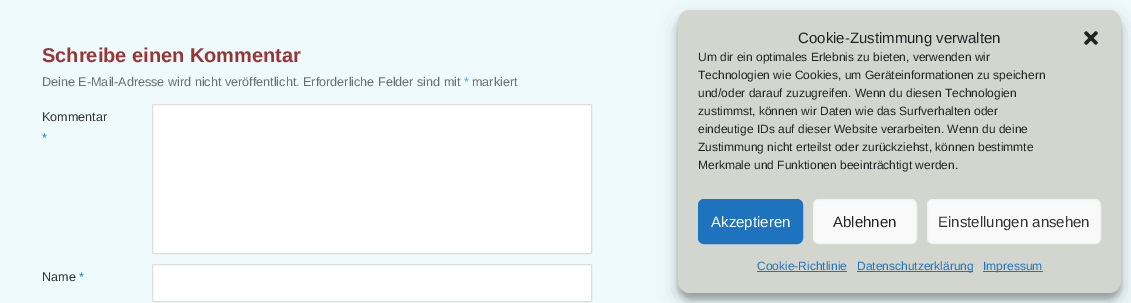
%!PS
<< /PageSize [1131 303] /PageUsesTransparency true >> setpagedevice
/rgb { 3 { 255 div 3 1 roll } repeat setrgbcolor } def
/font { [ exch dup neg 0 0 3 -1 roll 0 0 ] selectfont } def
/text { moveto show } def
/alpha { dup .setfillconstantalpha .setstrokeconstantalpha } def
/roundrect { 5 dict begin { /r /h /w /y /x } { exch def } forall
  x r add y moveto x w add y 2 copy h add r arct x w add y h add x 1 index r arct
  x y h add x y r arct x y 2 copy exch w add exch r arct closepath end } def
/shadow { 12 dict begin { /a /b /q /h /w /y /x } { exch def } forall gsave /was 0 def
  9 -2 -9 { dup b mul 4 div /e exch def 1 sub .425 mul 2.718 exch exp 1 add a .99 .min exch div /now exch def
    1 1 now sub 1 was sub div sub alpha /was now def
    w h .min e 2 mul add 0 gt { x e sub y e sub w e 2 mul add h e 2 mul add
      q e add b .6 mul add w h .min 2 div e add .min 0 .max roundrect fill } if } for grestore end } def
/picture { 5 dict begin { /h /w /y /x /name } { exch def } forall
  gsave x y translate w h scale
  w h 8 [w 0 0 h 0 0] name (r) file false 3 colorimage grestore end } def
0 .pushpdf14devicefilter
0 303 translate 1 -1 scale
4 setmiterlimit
238 250 251 rgb
0 0 1131 303 rectfill
255 255 255 rgb
152.5 104.5 439 149 1.5 roundrect gsave fill grestore
221 221 221 rgb
stroke
255 255 255 rgb
152.5 264.5 439 37 1.5 roundrect gsave fill grestore
221 221 221 rgb
stroke
0 0 0 rgb
678 16 443 283 12 3 0.23 shadow
678 20 443 283 12 10 0.19 shadow
210 214 207 rgb
678 10 443 283 12 roundrect fill
(img_01.rgb) 1084 31 14 14 picture
30 115 190 rgb
698.5 199.5 104 44 5.5 roundrect gsave fill grestore
stroke
249 249 249 rgb
813.5 199.5 103 44 5.5 roundrect gsave fill grestore
242 242 242 rgb
stroke
249 249 249 rgb
927.5 199.5 173 44 5.5 roundrect gsave fill grestore
242 242 242 rgb
stroke
30 115 190 rgb
757 271 90 1 rectfill
857 271 116 1 rectfill
983 271 60 1 rectfill
/LiberationSans-Bold 20 font
151 54 54 rgb
(Schreibe einen Kommentar) 42 62 text
/LiberationSans-Regular 12.6 font
107 111 111 rgb
(Deine E-Mail-Adresse wird nicht veröffentlicht. Erforderliche Felder sind mit) 42 86 text
81 168 218 rgb
(*) 464 86 text
107 111 111 rgb
(markiert) 472 86 text
51 51 51 rgb
(Kommentar) 42 121 text
13 133 204 rgb
(*) 42 142 text
51 51 51 rgb
(Name) 42 281 text
13 133 204 rgb
(*) 79 281 text
/LiberationSans-Regular 15 font
34 34 34 rgb
(Cookie-Zustimmung verwalten) 798 43 text
/LiberationSans-Regular 12 font
(Um dir ein optimales Erlebnis zu bieten, verwenden wir) 698 61 text
(Technologien wie Cookies, um Geräteinformationen zu speichern) 698 79 text
(und/oder darauf zuzugreifen. Wenn du diesen Technologien) 698 97 text
(zustimmst, können wir Daten wie das Surfverhalten oder) 698 115 text
(eindeutige IDs auf dieser Website verarbeiten. Wenn du deine) 698 133 text
(Zustimmung nicht erteilst oder zurückziehst, können bestimmte) 698 151 text
(Merkmale und Funktionen beeinträchtigt werden.) 698 169 text
/LiberationSans-Regular 15 font
255 255 255 rgb
(Akzeptieren) 711 227 text
34 34 34 rgb
(Ablehnen) 833 227 text
51 51 51 rgb
(Einstellungen ansehen) 938 227 text
/LiberationSans-Regular 12 font
30 115 190 rgb
(Cookie-Richtlinie) 757 270 text
(Datenschutzerklärung) 857 270 text
(Impressum) 983 270 text
.poppdf14devicefilter showpage
